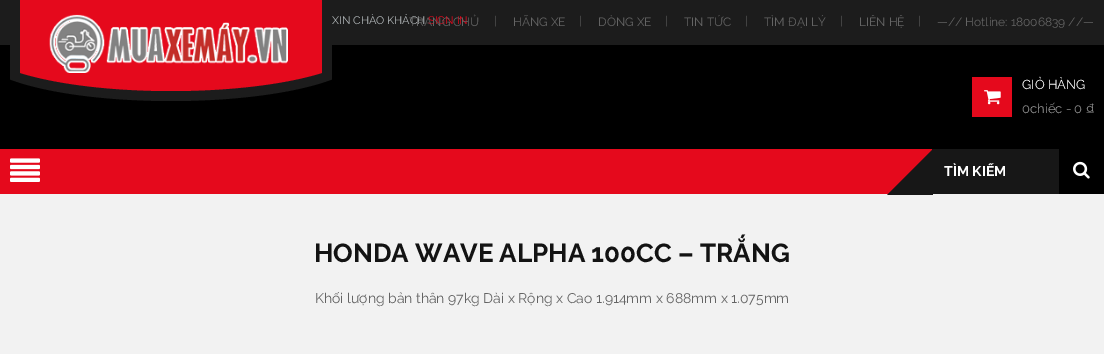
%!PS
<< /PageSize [1104 363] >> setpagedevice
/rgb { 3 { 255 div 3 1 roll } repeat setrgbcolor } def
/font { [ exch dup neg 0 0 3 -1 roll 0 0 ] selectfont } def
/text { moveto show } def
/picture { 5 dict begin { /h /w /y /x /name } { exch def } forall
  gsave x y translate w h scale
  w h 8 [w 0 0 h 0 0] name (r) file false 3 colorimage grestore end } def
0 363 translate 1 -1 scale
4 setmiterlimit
255 255 255 rgb
0 0 1104 363 rectfill
0 0 0 rgb
0 45 1104 104 rectfill
28 28 28 rgb
0 0 1104 45 rectfill
gsave
10 0 322 121 rectclip
171 5 moveto 106.5 0 193 21.5 193 48 rcurveto 0 26.5 -86.5 48 -193 48 rcurveto -106.5 0 -193 -21.5 -193 -48 rcurveto 0 -26.5 86.5 -48 193 -48 rcurveto closepath fill
229 9 28 rgb
171 -5 moveto 106.5 0 193 21.5 193 48 rcurveto 0 26.5 -86.5 48 -193 48 rcurveto -106.5 0 -193 -21.5 -193 -48 rcurveto 0 -26.5 86.5 -48 193 -48 rcurveto closepath fill
grestore
229 9 28 rgb
20 0 302 73 rectfill
28 28 28 rgb
322 13 10 60 rectfill
10 13 10 60 rectfill
(img_01.rgb) 49 14 239 59 picture
229 9 28 rgb
972 77 40 40 rectfill
(img_02.rgb) 984 90 17 15 picture
0 149 932 45 rectfill
(img_03.rgb) 10 158 30 24 picture
23 23 23 rgb
932 149 127 45 rectfill
242 242 242 rgb
0 194 1104 160 rectfill
23 23 23 rgb
933 195 moveto -46 0 rlineto 46 -46 rlineto closepath fill
0 0 0 rgb
1059 149 45 45 rectfill
(img_04.rgb) 1073 161 17 18 picture
/Raleway-Regular 11 font
179 184 186 rgb
(XIN CHÀO KHÁCH) 332 24 text
229 9 28 rgb
(SIGN IN) 428 24 text
/Raleway-Regular 12 font
100 100 100 rgb
(TRANG CHỦ) 409 26 text
/Raleway-Light 12 font
(|) 494 25 text
/Raleway-Regular 12 font
(HÃNG XE) 513 26 text
/Raleway-Light 12 font
(|) 579 25 text
/Raleway-Regular 12 font
(DÒNG XE) 598 26 text
/Raleway-Light 12 font
(|) 665 25 text
/Raleway-Regular 12 font
(TIN TỨC) 684 26 text
/Raleway-Light 12 font
(|) 745 25 text
/Raleway-Regular 12 font
(TÌM ĐẠI LÝ) 764 26 text
/Raleway-Light 12 font
(|) 840 25 text
/Raleway-Regular 12 font
(LIÊN HỆ) 859 26 text
/Raleway-Light 12 font
(|) 918 25 text
/Raleway-Regular 12 font
(—// Hotline: 18006839 //—) 937 26 text
/Raleway-Regular 13 font
255 255 255 rgb
(GIỎ HÀNG) 1022 89 text
145 145 145 rgb
(0chiếc - 0 ₫) 1022 113 text
gsave
944 163 106 16 rectclip
/Raleway-Bold 14 font
255 255 255 rgb
(TÌM KIẾM) 944 176 text
grestore
/Raleway-Bold 26 font
19 19 19 rgb
(HONDA WAVE ALPHA 100CC – TRẮNG) 314 262 text
/Raleway-Regular 14 font
100 100 100 rgb
(Khối lượng bản thân 97kg Dài x Rộng x Cao 1.914mm x 688mm x 1.075mm) 315 303 text
showpage
